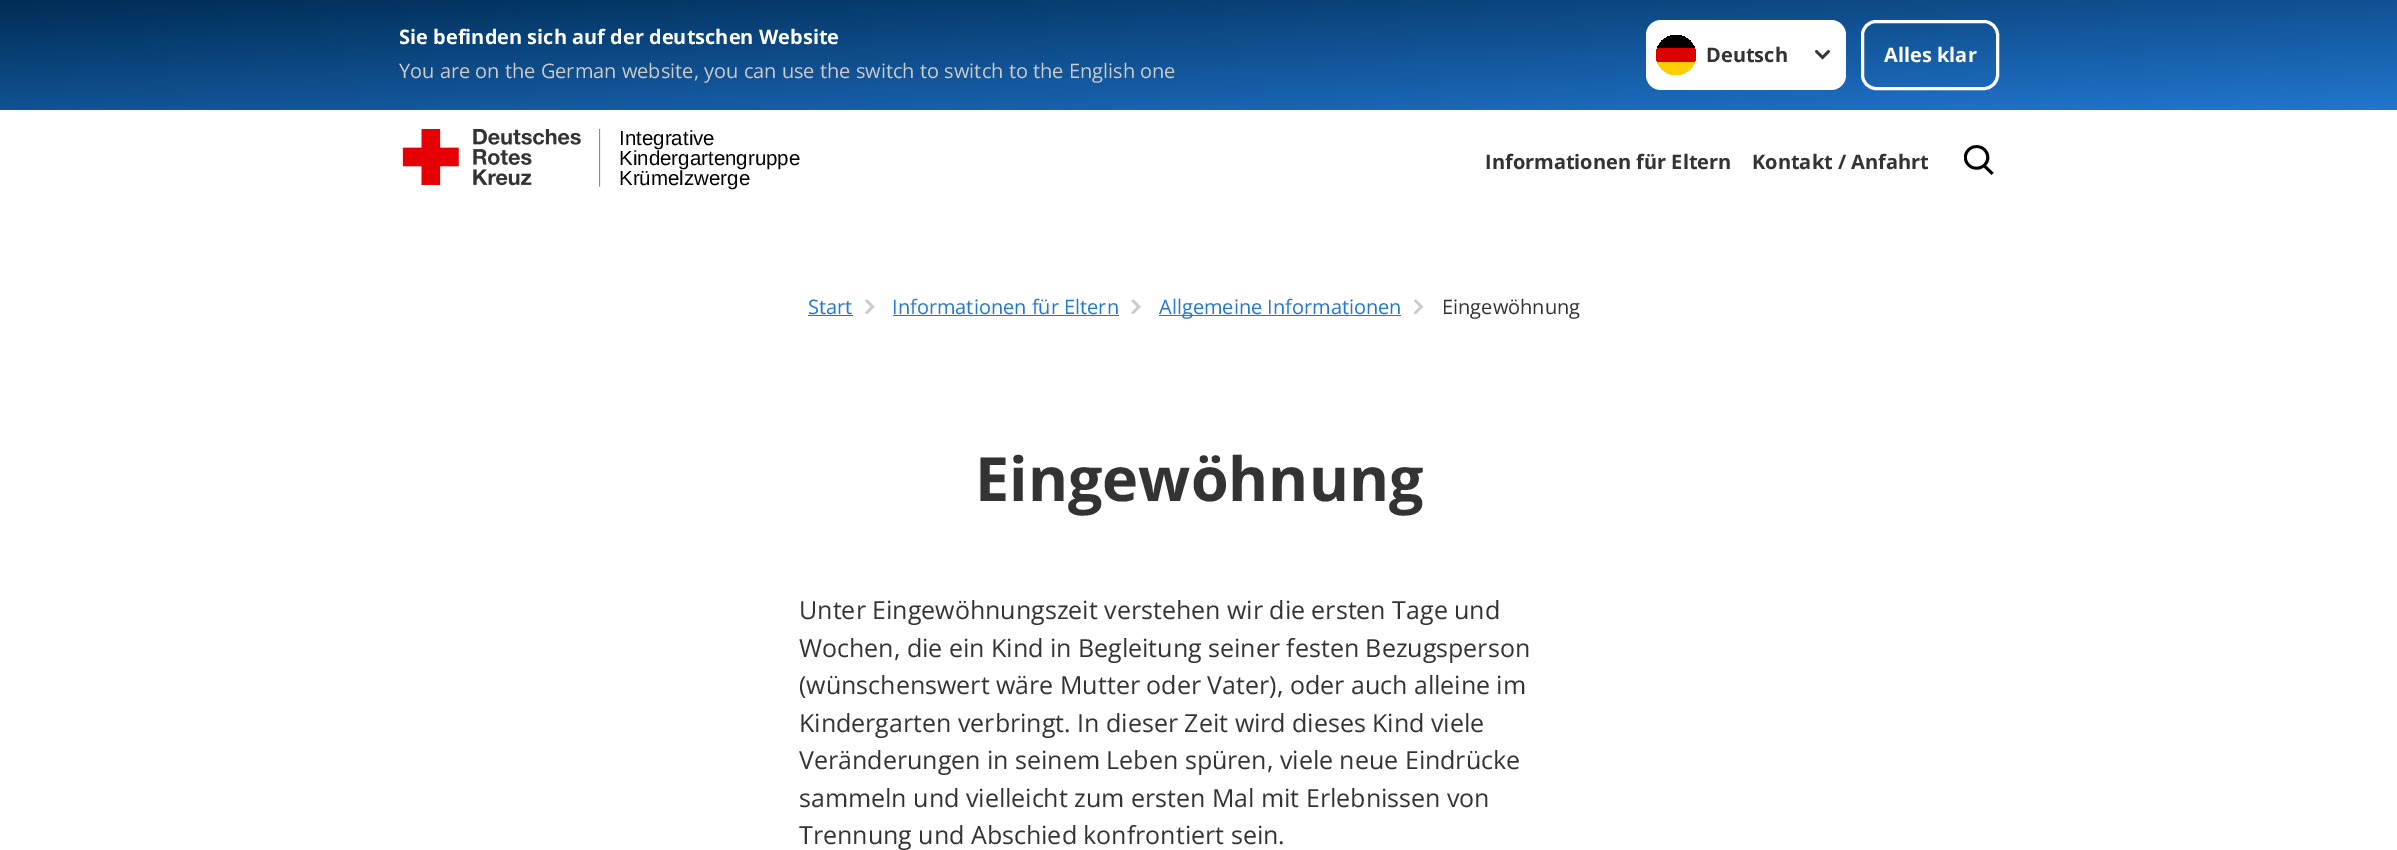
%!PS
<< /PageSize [2397 850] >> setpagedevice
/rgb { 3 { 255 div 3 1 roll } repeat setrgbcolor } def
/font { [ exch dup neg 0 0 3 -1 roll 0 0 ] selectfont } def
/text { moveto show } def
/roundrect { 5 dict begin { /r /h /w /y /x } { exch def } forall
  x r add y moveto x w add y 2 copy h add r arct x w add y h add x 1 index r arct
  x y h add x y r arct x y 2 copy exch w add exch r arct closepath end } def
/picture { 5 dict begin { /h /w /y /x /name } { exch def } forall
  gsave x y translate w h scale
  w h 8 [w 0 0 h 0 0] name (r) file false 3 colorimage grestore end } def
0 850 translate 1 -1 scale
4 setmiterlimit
255 255 255 rgb
0 0 2397 850 rectfill
gsave 0 0 moveto 2397 0 rlineto 0 110 rlineto -2397 0 rlineto closepath clip newpath
<< /ShadingType 2 /ColorSpace /DeviceRGB /Coords [1194 -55 1204 165] /Extend [true true] /Function << /FunctionType 2 /Domain [0 1] /C0 [0 0.176 0.333] /C1 [0.133 0.463 0.816] /N 1 >> >> shfill grestore
1646 20 200 70 15 roundrect fill
gsave
1656 35 40 40 20 roundrect clip newpath
255 206 0 rgb
1657 62 38 13 rectfill
0 0 0 rgb
1657 35 38 13 rectfill
221 0 0 rgb
1656 48 40 14 rectfill
grestore
(img_01.rgb) 1815 50 15 10 picture
3 setlinewidth
1862.5 21.5 135 67 13.5 roundrect stroke
(img_02.rgb) 402 129 199 58 picture
(img_03.rgb) 1964 145 30 30 picture
34 118 208 rgb
808 315 45 1 rectfill
(img_04.rgb) 865 299 10 15 picture
893 315 226 1 rectfill
(img_05.rgb) 1131 299 10 15 picture
1159 315 242 1 rectfill
(img_06.rgb) 1414 299 10 15 picture
/OpenSans-Bold 20 font
255 255 255 rgb
(Sie befinden sich auf der deutschen Website) 399 44 text
/OpenSans-Regular 20 font
203 203 203 rgb
(You are on the German website, you can use the switch to switch to the English one) 399 78 text
/OpenSans-Bold 20 font
51 51 51 rgb
(Deutsch) 1706 62 text
255 255 255 rgb
(Alles klar) 1884 62 text
/LiberationSans-Regular 20.5 font
0 0 0 rgb
(Integrative) 619 145 text
(Kindergartengruppe) 619 165 text
(Krümelzwerge) 619 185 text
/OpenSans-Bold 20 font
51 51 51 rgb
(Informationen für Eltern) 1485 169 text
(Kontakt / Anfahrt) 1752 169 text
/OpenSans-Regular 20 font
34 118 208 rgb
(Start) 808 314 text
(Informationen für Eltern) 892 314 text
(Allgemeine Informationen) 1159 314 text
51 51 51 rgb
(Eingewöhnung) 1442 314 text
/OpenSans-Bold 61 font
(Eingewöhnung) 975 501 text
/OpenSans-Regular 25 font
(Unter Eingewöhnungszeit verstehen wir die ersten Tage und) 799 619 text
(Wochen, die ein Kind in Begleitung seiner festen Bezugsperson) 799 657 text
(\(wünschenswert wäre Mutter oder Vater\), oder auch alleine im) 799 694 text
(Kindergarten verbringt. In dieser Zeit wird dieses Kind viele) 799 732 text
(Veränderungen in seinem Leben spüren, viele neue Eindrücke) 799 769 text
(sammeln und vielleicht zum ersten Mal mit Erlebnissen von) 799 807 text
(Trennung und Abschied konfrontiert sein.) 799 844 text
showpage
